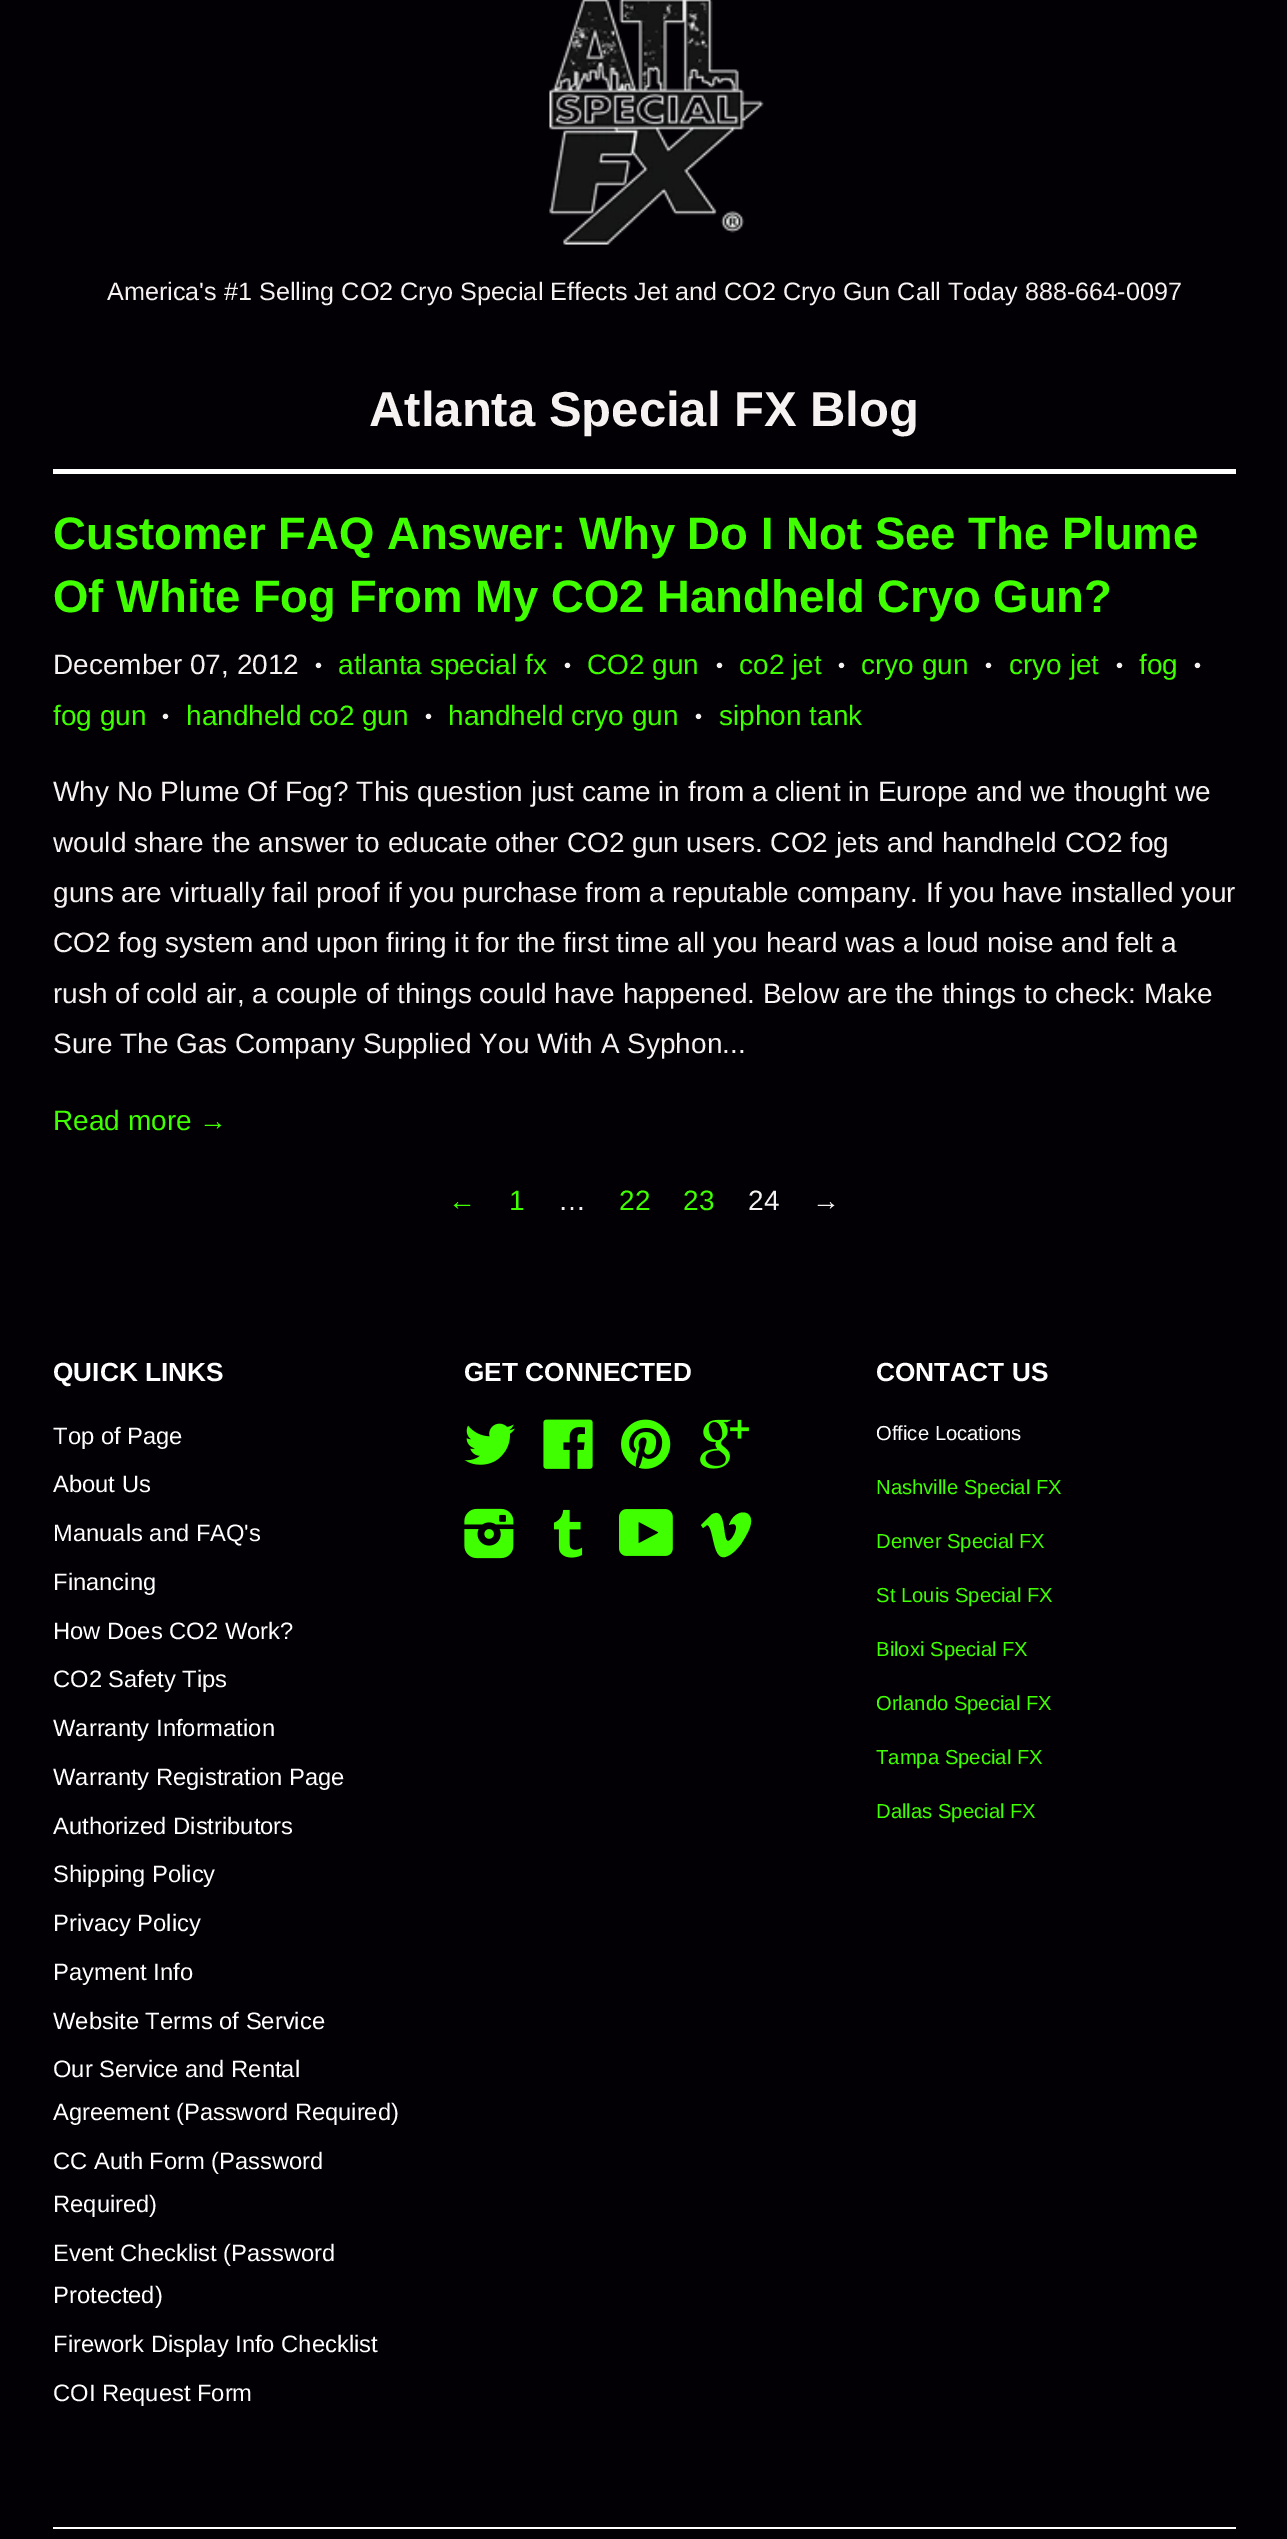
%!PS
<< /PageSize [1287 2539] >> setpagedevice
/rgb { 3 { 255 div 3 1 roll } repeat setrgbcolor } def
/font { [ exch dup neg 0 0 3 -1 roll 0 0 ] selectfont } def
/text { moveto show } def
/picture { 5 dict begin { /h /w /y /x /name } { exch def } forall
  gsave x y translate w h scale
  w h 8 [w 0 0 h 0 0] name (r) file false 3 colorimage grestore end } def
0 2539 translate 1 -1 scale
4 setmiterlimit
3 0 5 rgb
0 0 1287 2539 rectfill
(img_01.rgb) 549 0 215 245 picture
255 255 255 rgb
53 469 1183 5 rectfill
(img_02.rgb) 464 1423 51 42 picture
(img_03.rgb) 543 1419 50 50 picture
(img_04.rgb) 621 1419 50 50 picture
(img_05.rgb) 700 1419 49 50 picture
(img_06.rgb) 464 1508 50 51 picture
(img_07.rgb) 554 1509 29 49 picture
(img_08.rgb) 619 1509 54 47 picture
63 255 0 rgb
701 1525 moveto 2 3 rlineto 4 -3 rlineto 7 1 5 35 18 32 rcurveto 7 -2 12 -8 16 -13 rcurveto 3 -5 7 -11 9 -17 rcurveto 6 -18 -15 -20 -21 -2 rcurveto 14 -6 4 16 -1 16 rcurveto -6 0 -1 -37 -17 -26 rcurveto closepath fill
255 255 255 rgb
53 2527 1183 2 rectfill
/LiberationSans-Regular 25.2 font
246 242 242 rgb
(America's #1 Selling CO2 Cryo Special Effects Jet and CO2 Cryo Gun Call Today 888-664-0097) 107 300 text
/LiberationSans-Bold 49 font
(Atlanta Special FX Blog) 369 426 text
/LiberationSans-Bold 45.5 font
63 255 0 rgb
(Customer FAQ Answer: Why Do I Not See The Plume) 53 549 text
(Of White Fog From My CO2 Handheld Cryo Gun?) 53 612 text
/LiberationSans-Regular 28 font
246 242 242 rgb
(December 07, 2012) 53 674 text
/LiberationSans-Regular 20 font
(•) 315 672 text
/LiberationSans-Regular 28 font
63 255 0 rgb
(atlanta special fx) 338 674 text
/LiberationSans-Regular 20 font
246 242 242 rgb
(•) 564 672 text
/LiberationSans-Regular 28 font
63 255 0 rgb
(CO2 gun) 587 674 text
/LiberationSans-Regular 20 font
246 242 242 rgb
(•) 716 672 text
/LiberationSans-Regular 28 font
63 255 0 rgb
(co2 jet) 739 674 text
/LiberationSans-Regular 20 font
246 242 242 rgb
(•) 838 672 text
/LiberationSans-Regular 28 font
63 255 0 rgb
(cryo gun) 861 674 text
/LiberationSans-Regular 20 font
246 242 242 rgb
(•) 985 672 text
/LiberationSans-Regular 28 font
63 255 0 rgb
(cryo jet) 1009 674 text
/LiberationSans-Regular 20 font
246 242 242 rgb
(•) 1116 672 text
/LiberationSans-Regular 28 font
63 255 0 rgb
(fog) 1139 674 text
/LiberationSans-Regular 20 font
246 242 242 rgb
(•) 1194 672 text
/LiberationSans-Regular 28 font
63 255 0 rgb
(fog gun) 53 725 text
/LiberationSans-Regular 20 font
246 242 242 rgb
(•) 162 723 text
/LiberationSans-Regular 28 font
63 255 0 rgb
(handheld co2 gun) 186 725 text
/LiberationSans-Regular 20 font
246 242 242 rgb
(•) 425 723 text
/LiberationSans-Regular 28 font
63 255 0 rgb
(handheld cryo gun) 448 725 text
/LiberationSans-Regular 20 font
246 242 242 rgb
(•) 695 723 text
/LiberationSans-Regular 28 font
63 255 0 rgb
(siphon tank) 719 725 text
246 242 242 rgb
(Why No Plume Of Fog? This question just came in from a client in Europe and we thought we) 53 801 text
(would share the answer to educate other CO2 gun users. CO2 jets and handheld CO2 fog) 53 852 text
(guns are virtually fail proof if you purchase from a reputable company. If you have installed your) 53 902 text
(CO2 fog system and upon firing it for the first time all you heard was a loud noise and felt a) 53 952 text
(rush of cold air, a couple of things could have happened. Below are the things to check: Make) 53 1003 text
(Sure The Gas Company Supplied You With A Syphon...) 53 1053 text
63 255 0 rgb
(Read more →) 53 1130 text
(←) 448 1210 text
(1) 509 1210 text
246 242 242 rgb
(…) 558 1210 text
63 255 0 rgb
(22) 619 1210 text
(23) 683 1210 text
246 242 242 rgb
(24) 748 1210 text
(→) 812 1210 text
/LiberationSans-Bold 26.25 font
255 255 255 rgb
(QUICK LINKS) 53 1381 text
/LiberationSans-Regular 23.75 font
(Top of Page) 53 1444 text
(About Us) 53 1492 text
(Manuals and FAQ's) 53 1541 text
(Financing) 53 1590 text
(How Does CO2 Work?) 53 1639 text
(CO2 Safety Tips) 53 1687 text
(Warranty Information) 53 1736 text
(Warranty Registration Page) 53 1785 text
(Authorized Distributors) 53 1834 text
(Shipping Policy) 53 1882 text
(Privacy Policy) 53 1931 text
(Payment Info) 53 1980 text
(Website Terms of Service) 53 2029 text
(Our Service and Rental) 53 2077 text
(Agreement \(Password Required\)) 53 2120 text
(CC Auth Form \(Password) 53 2169 text
(Required\)) 53 2212 text
(Event Checklist \(Password) 53 2261 text
(Protected\)) 53 2303 text
(Firework Display Info Checklist) 53 2352 text
(COI Request Form) 53 2401 text
/LiberationSans-Bold 26.25 font
(GET CONNECTED) 464 1381 text
(CONTACT US) 876 1381 text
/LiberationSans-Regular 20.25 font
(Office Locations) 876 1440 text
63 255 0 rgb
(Nashville Special FX) 876 1494 text
(Denver Special FX) 876 1548 text
(St Louis Special FX) 876 1602 text
(Biloxi Special FX) 876 1656 text
(Orlando Special FX) 876 1710 text
(Tampa Special FX) 876 1764 text
(Dallas Special FX) 876 1818 text
showpage
